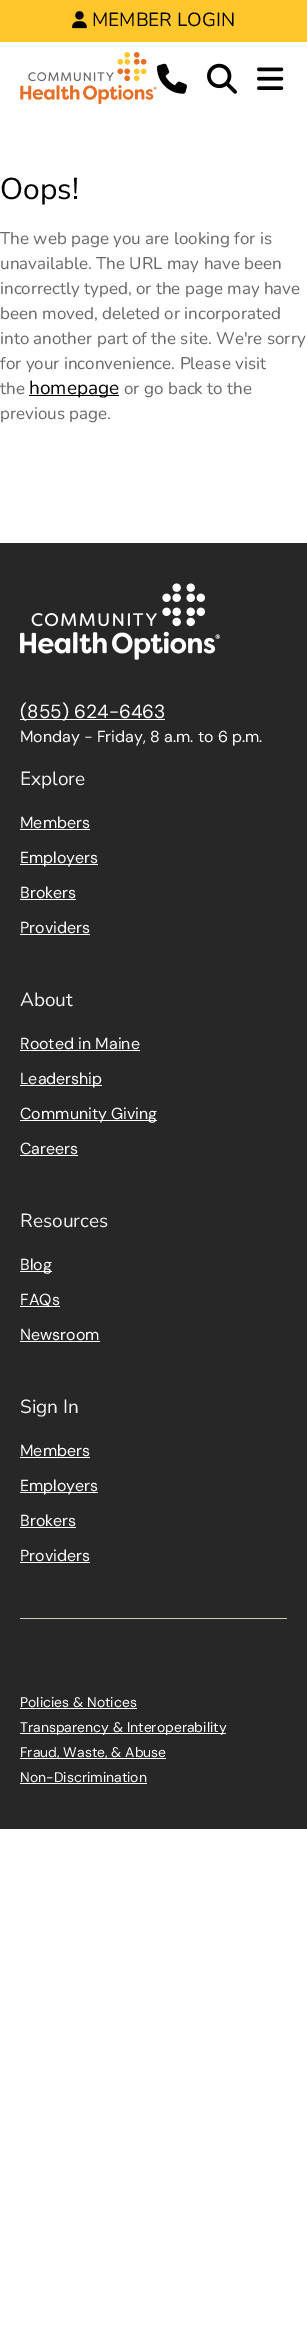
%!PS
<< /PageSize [307 2351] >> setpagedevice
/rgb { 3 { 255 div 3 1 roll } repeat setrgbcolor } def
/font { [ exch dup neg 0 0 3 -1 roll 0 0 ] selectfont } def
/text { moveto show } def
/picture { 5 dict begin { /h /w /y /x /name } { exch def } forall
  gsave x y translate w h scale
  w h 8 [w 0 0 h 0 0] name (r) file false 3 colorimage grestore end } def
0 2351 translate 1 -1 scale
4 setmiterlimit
255 255 255 rgb
0 0 307 2351 rectfill
255 199 44 rgb
0 0 307 42 rectfill
(img_01.rgb) 72 11 15 18 picture
(img_02.rgb) 20 52 137 52 picture
(img_03.rgb) 157 63 30 31 picture
(img_04.rgb) 207 63 30 31 picture
(img_05.rgb) 257 67 27 23 picture
0 0 0 rgb
29 395 90 1 rectfill
39 39 39 rgb
0 543 307 1286 rectfill
(img_06.rgb) 20 583 200 77 picture
255 255 255 rgb
20 719 145 1 rectfill
20 829 70 1 rectfill
20 864 78 1 rectfill
20 899 56 1 rectfill
20 934 70 1 rectfill
20 1050 120 1 rectfill
20 1085 82 1 rectfill
20 1120 137 1 rectfill
20 1155 58 1 rectfill
20 1271 32 1 rectfill
20 1306 40 1 rectfill
20 1341 80 1 rectfill
20 1457 70 1 rectfill
20 1492 78 1 rectfill
20 1527 56 1 rectfill
20 1562 70 1 rectfill
209 204 189 rgb
20 1618 267 1 rectfill
255 255 255 rgb
20 1708 117 1 rectfill
20 1733 206 1 rectfill
20 1758 146 1 rectfill
20 1783 127 1 rectfill
/Nunito-Regular 19 font
0 0 0 rgb
(MEMBER LOGIN) 92 26 text
/NunitoSans-Regular 30 font
(Oops!) 0 199 text
/Nunito-Regular 17 font
103 104 107 rgb
(The web page you are looking for is) 0 244 text
(unavailable. The URL may have been) 0 269 text
(incorrectly typed, or the page may have) 0 294 text
(been moved, deleted or incorporated) 0 319 text
(into another part of the site. We're sorry) 0 344 text
(for your inconvenience. Please visit) 0 369 text
(the) 0 394 text
/Nunito-Regular 19 font
0 0 0 rgb
(homepage) 29 394 text
/Nunito-Regular 17 font
103 104 107 rgb
(or go back to the) 124 394 text
(previous page.) 0 419 text
/DMSans-Regular 19 font
255 255 255 rgb
(\(855\) 624-6463) 20 718 text
/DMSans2-Regular 16 font
(Monday - Friday, 8 a.m. to 6 p.m.) 20 742 text
/NunitoSans-Regular 19 font
245 244 241 rgb
(Explore) 20 785 text
/DMSans2-Regular 16 font
255 255 255 rgb
(Members) 20 828 text
(Employers) 20 863 text
(Brokers) 20 898 text
(Providers) 20 933 text
/NunitoSans-Regular 19 font
245 244 241 rgb
(About) 20 1006 text
/DMSans2-Regular 16 font
255 255 255 rgb
(Rooted in Maine) 20 1049 text
(Leadership) 20 1084 text
(Community Giving) 20 1119 text
(Careers) 20 1154 text
/NunitoSans-Regular 19 font
245 244 241 rgb
(Resources) 20 1227 text
/DMSans2-Regular 16 font
255 255 255 rgb
(Blog) 20 1270 text
(FAQs) 20 1305 text
(Newsroom) 20 1340 text
/NunitoSans-Regular 19 font
245 244 241 rgb
(Sign In) 20 1413 text
/DMSans2-Regular 16 font
255 255 255 rgb
(Members) 20 1456 text
(Employers) 20 1491 text
(Brokers) 20 1526 text
(Providers) 20 1561 text
/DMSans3-Regular 14 font
(Policies & Notices) 20 1707 text
(Transparency & Interoperability) 20 1732 text
(Fraud, Waste, & Abuse) 20 1757 text
(Non-Discrimination) 20 1782 text
showpage
